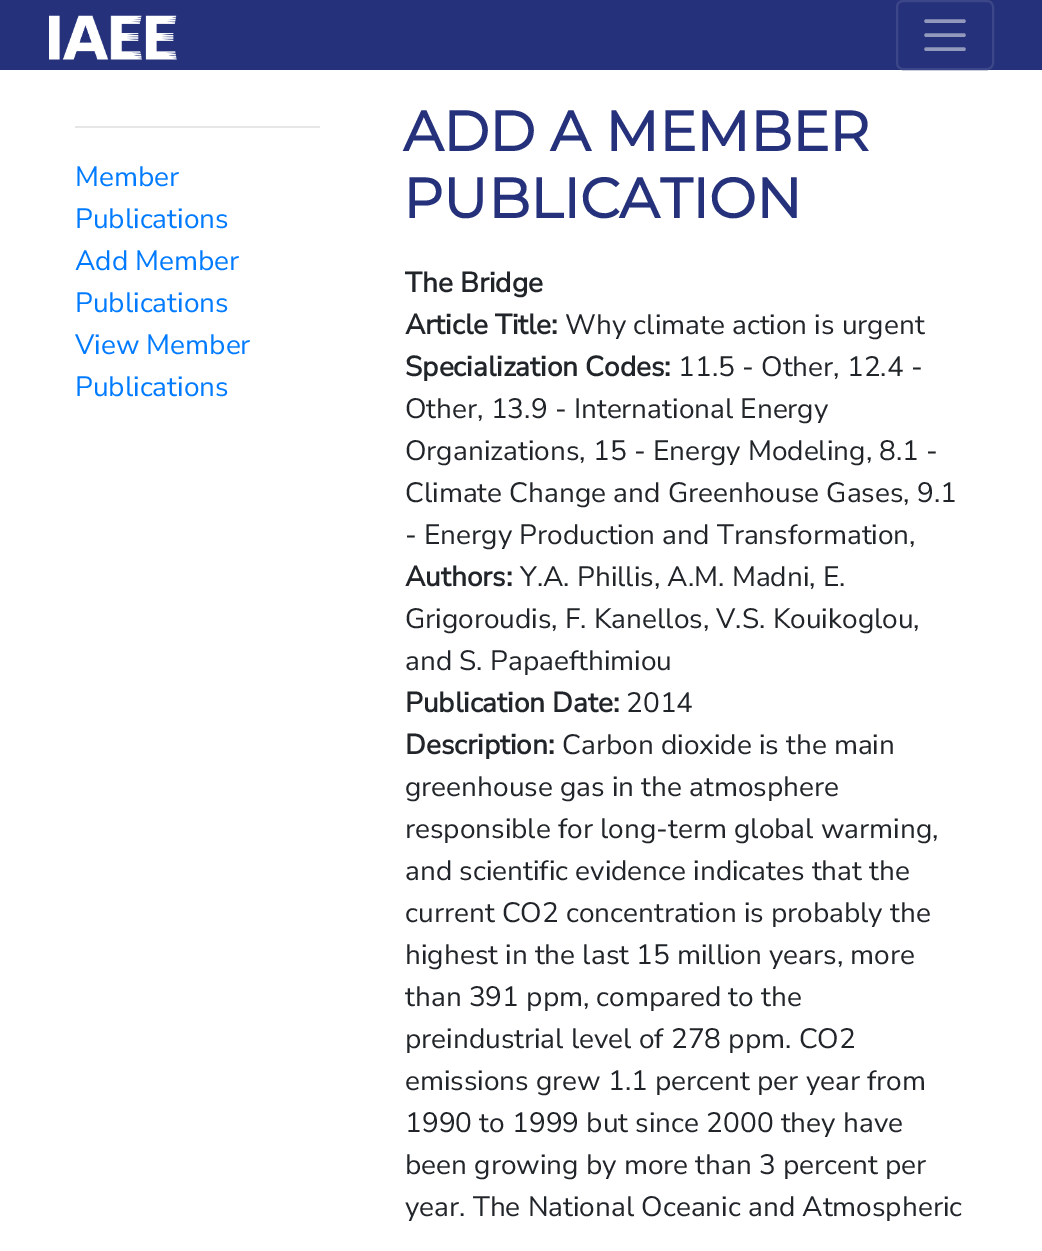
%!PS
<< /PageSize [1042 1251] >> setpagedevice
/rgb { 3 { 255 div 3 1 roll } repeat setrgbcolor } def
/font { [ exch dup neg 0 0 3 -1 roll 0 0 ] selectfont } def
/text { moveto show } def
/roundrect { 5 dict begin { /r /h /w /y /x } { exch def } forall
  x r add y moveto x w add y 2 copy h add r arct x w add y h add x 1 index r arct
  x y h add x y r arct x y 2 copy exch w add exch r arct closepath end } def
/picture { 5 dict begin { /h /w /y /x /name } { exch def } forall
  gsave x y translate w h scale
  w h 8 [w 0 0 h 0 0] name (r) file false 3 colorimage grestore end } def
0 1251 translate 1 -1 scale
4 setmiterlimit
255 255 255 rgb
0 0 1042 1251 rectfill
37 50 123 rgb
0 0 1042 70 rectfill
(img_01.rgb) 49 15 128 45 picture
59 71 136 rgb
2 setlinewidth
897 1 96 68 6 roundrect stroke
146 153 189 rgb
3.5 setlinewidth
1 setlinecap
926 21 moveto 38 0 rlineto 926 35 moveto 38 0 rlineto 926 49 moveto 38 0 rlineto stroke
230 230 230 rgb
75 126 245 2 rectfill
/NunitoSans-ExtraLight 28 font
0 123 255 rgb
(Member) 75 186 text
(Publications) 75 228 text
(Add Member) 75 270 text
(Publications) 75 312 text
(View Member) 75 354 text
(Publications) 75 396 text
/Montserrat-Bold 56 font
37 50 123 rgb
(ADD A MEMBER) 403 151 text
(PUBLICATION) 403 218 text
/NunitoSans-Bold 28 font
33 37 41 rgb
(The Bridge) 405 292 text
(Article Title:) 405 334 text
/NunitoSans-ExtraLight 28 font
(Why climate action is urgent) 565 334 text
/NunitoSans-Bold 28 font
(Specialization Codes:) 405 376 text
/NunitoSans-ExtraLight 28 font
(11.5 - Other, 12.4 -) 678 376 text
(Other, 13.9 - International Energy) 405 418 text
(Organizations, 15 - Energy Modeling, 8.1 -) 405 460 text
(Climate Change and Greenhouse Gases, 9.1) 405 502 text
(- Energy Production and Transformation,) 405 544 text
/NunitoSans-Bold 28 font
(Authors:) 405 586 text
/NunitoSans-ExtraLight 28 font
(Y.A. Phillis, A.M. Madni, E.) 520 586 text
(Grigoroudis, F. Kanellos, V.S. Kouikoglou,) 405 628 text
(and S. Papaefthimiou) 405 670 text
/NunitoSans-Bold 28 font
(Publication Date:) 405 712 text
/NunitoSans-ExtraLight 28 font
(2014) 626 712 text
/NunitoSans-Bold 28 font
(Description:) 405 754 text
/NunitoSans-ExtraLight 28 font
(Carbon dioxide is the main) 562 754 text
(greenhouse gas in the atmosphere) 405 796 text
(responsible for long-term global warming,) 405 838 text
(and scientific evidence indicates that the) 405 880 text
(current CO2 concentration is probably the) 405 922 text
(highest in the last 15 million years, more) 405 964 text
(than 391 ppm, compared to the) 405 1006 text
(preindustrial level of 278 ppm. CO2) 405 1048 text
(emissions grew 1.1 percent per year from) 405 1090 text
(1990 to 1999 but since 2000 they have) 405 1132 text
(been growing by more than 3 percent per) 405 1174 text
(year. The National Oceanic and Atmospheric) 405 1216 text
showpage
